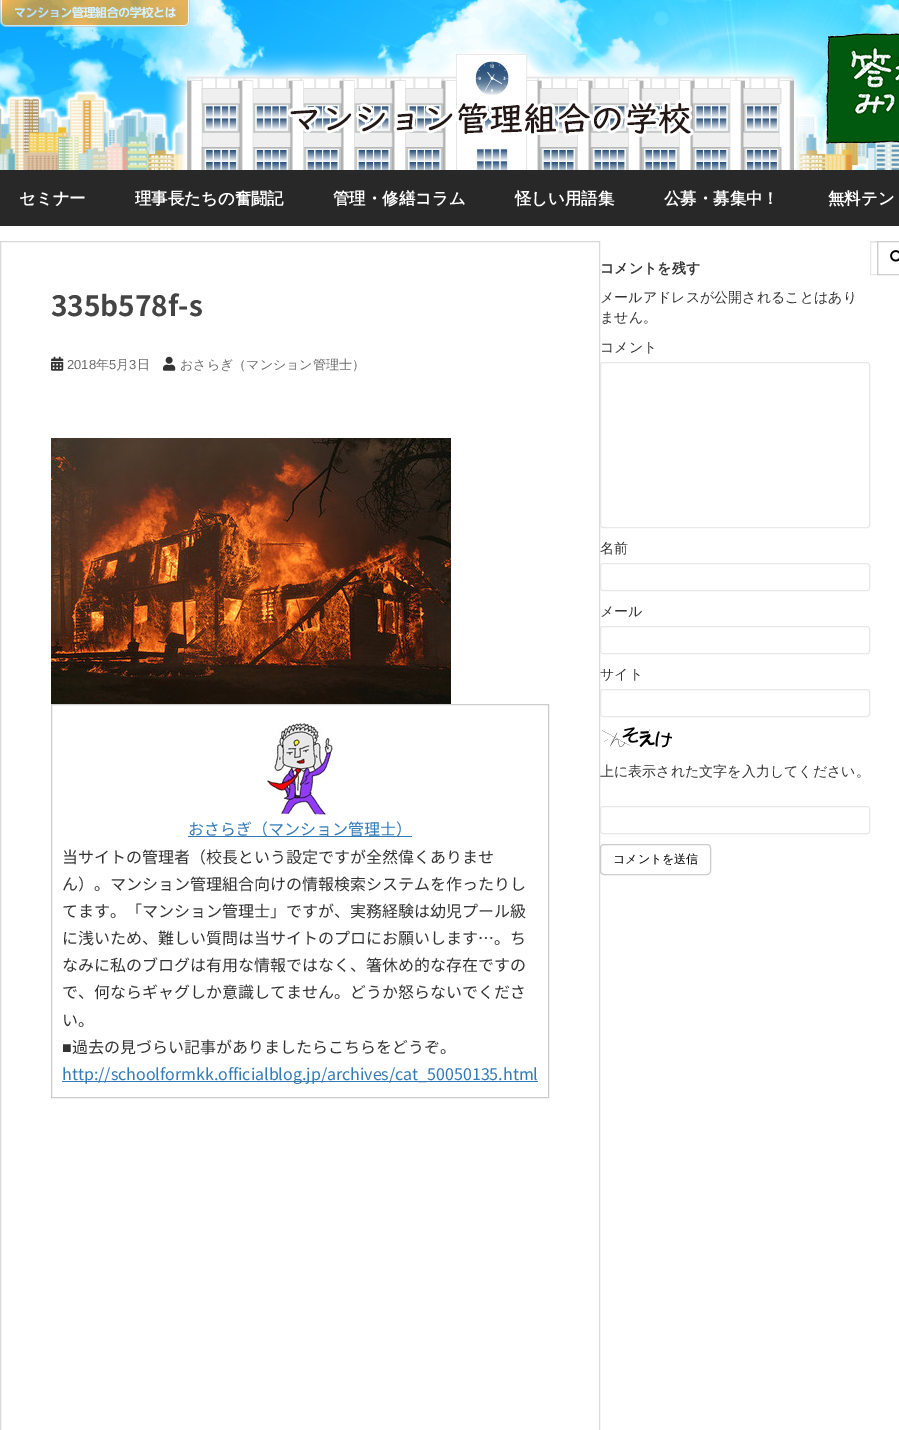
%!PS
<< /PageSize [899 1430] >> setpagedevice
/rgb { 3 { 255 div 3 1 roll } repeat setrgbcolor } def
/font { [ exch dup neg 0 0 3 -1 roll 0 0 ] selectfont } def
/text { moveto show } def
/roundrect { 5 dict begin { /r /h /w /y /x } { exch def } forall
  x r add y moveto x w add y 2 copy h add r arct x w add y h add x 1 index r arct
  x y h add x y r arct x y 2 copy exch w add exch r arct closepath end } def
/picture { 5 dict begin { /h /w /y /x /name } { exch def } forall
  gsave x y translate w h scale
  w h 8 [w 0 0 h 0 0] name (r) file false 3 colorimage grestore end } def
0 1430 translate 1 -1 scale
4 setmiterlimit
255 255 255 rgb
0 0 899 1430 rectfill
(img_01.rgb) 0 0 899 170 picture
(img_02.rgb) 164 34 653 136 picture
(img_03.rgb) 0 0 190 27 picture
(img_04.rgb) 288 100 406 37 picture
(img_05.rgb) 826 33 73 111 picture
40 40 40 rgb
0 170 899 56 rectfill
218 218 218 rgb
0.5 241.5 599 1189 rectstroke
(img_06.rgb) 51 356 13 15 picture
(img_07.rgb) 163 356 13 15 picture
(img_08.rgb) 51 438 400 266 picture
204 204 204 rgb
51.5 704.5 497 393 rectstroke
(img_09.rgb) 263 723 72 92 picture
51 122 183 rgb
188 836 224 1 rectfill
62 1081 476 1 rectfill
232 232 232 rgb
600.5 362.5 269 165 2.5 roundrect stroke
600.5 563.5 269 27 2.5 roundrect stroke
600.5 626.5 269 27 2.5 roundrect stroke
600.5 689.5 269 27 2.5 roundrect stroke
(img_10.rgb) 602 727 70 21 picture
600.5 806.5 269 27 2.5 roundrect stroke
204 204 204 rgb
600.5 844.5 110 30 3.5 roundrect stroke
236 236 236 rgb
871 242 6 1 rectfill
232 232 232 rgb
870.5 241.5 7 33 rectstroke
204 204 204 rgb
877.5 241.5 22 33 rectstroke
(img_11.rgb) 890 250 9 12 picture
/WenQuanYiZenHei-Bold 16.4 font
255 255 255 rgb
(セミナー) 19 204 text
(理事長たちの奮闘記) 135 204 text
(管理・修繕コラム) 333 204 text
(怪しい用語集) 515 204 text
(公募・募集中！) 664 204 text
(無料テン) 828 204 text
/NotoSansJP-Bold 28 font
68 68 68 rgb
(335b578f-s) 51 316 text
/LiberationSans-Regular 13 font
107 107 107 rgb
(2018) 67 369 text
/WenQuanYiZenHei-Medium 13 font
(年) 96 369 text
/LiberationSans-Regular 13 font
(5) 109 369 text
/WenQuanYiZenHei-Medium 13 font
(月) 116 369 text
/LiberationSans-Regular 13 font
(3) 129 369 text
/WenQuanYiZenHei-Medium 13 font
(日) 137 369 text
(おさらぎ（マンション管理士）) 180 369 text
/NotoSansJP-Regular 16 font
51 122 183 rgb
(おさらぎ（マンション管理士）) 188 835 text
51 51 51 rgb
(当サイトの管理者（校長という設定ですが全然偉くありませ) 62 863 text
(ん）。マンション管理組合向けの情報検索システムを作ったりし) 62 890 text
(てます。「マンション管理士」ですが、実務経験は幼児プール級) 62 917 text
(に浅いため、難しい質問は当サイトのプロにお願いします…。ち) 62 944 text
(なみに私のブログは有用な情報ではなく、箸休め的な存在ですの) 62 971 text
(で、何ならギャグしか意識してません。どうか怒らないでくださ) 62 998 text
(い。) 62 1026 text
/LiberationSerif-Regular 16 font
(■) 62 1053 text
/NotoSansJP-Regular 16 font
(過去の見づらい記事がありましたらこちらをどうぞ。) 72 1053 text
51 122 183 rgb
(http://schoolformkk.officialblog.jp/archives/cat_50050135.html) 62 1080 text
/WenQuanYiZenHei-Bold 14 font
51 51 51 rgb
(コメントを残す) 600 273 text
/WenQuanYiZenHei-Medium 14 font
(メールアドレスが公開されることはあり) 600 302 text
(ません。) 600 322 text
(コメント) 600 352 text
(名前) 600 553 text
(メール) 600 616 text
(サイト) 600 679 text
(上に表示された文字を入力してください。) 600 776 text
/WenQuanYiZenHei-Medium 12 font
0 0 0 rgb
(コメントを送信) 613 863 text
showpage
